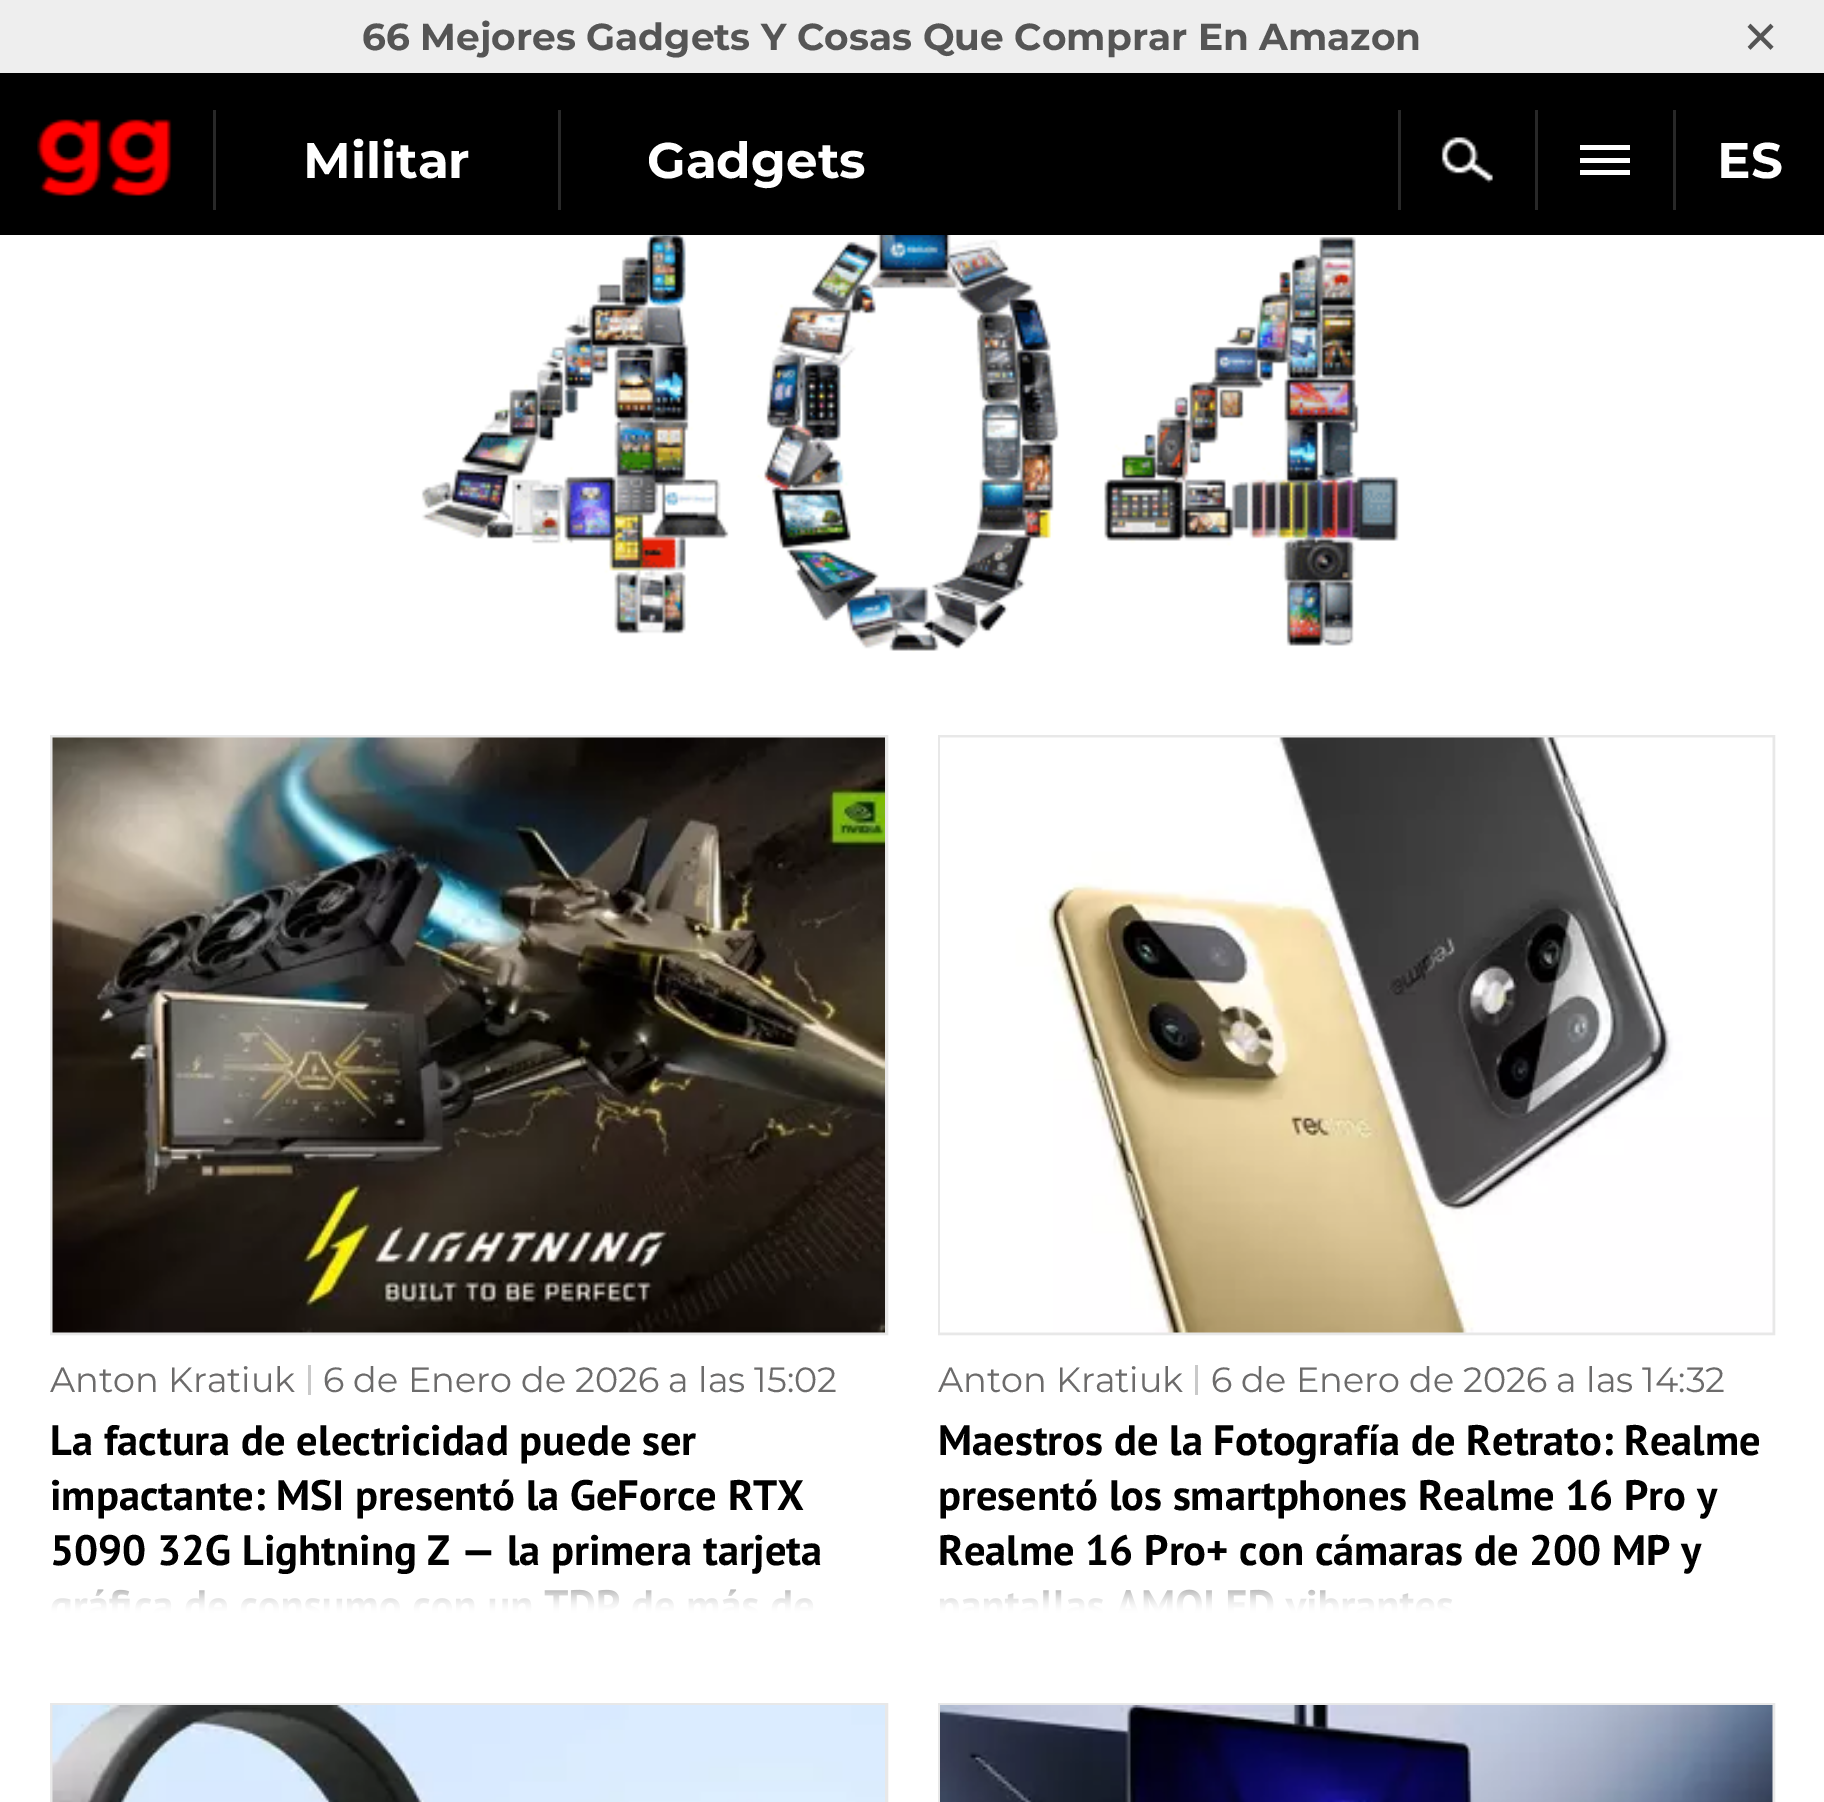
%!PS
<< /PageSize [1824 1802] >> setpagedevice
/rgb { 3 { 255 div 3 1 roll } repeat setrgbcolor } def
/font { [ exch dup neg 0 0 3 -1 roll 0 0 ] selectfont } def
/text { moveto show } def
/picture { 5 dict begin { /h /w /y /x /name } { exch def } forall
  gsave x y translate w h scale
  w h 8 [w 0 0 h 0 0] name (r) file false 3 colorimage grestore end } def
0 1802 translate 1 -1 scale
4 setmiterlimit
255 255 255 rgb
0 0 1824 1802 rectfill
0 0 0 rgb
0 73 1824 162 rectfill
238 238 238 rgb
0 0 1824 73 rectfill
(img_01.rgb) 37 119 135 77 picture
40 40 40 rgb
213 110 3 100 rectfill
558 110 3 100 rectfill
1398 110 3 100 rectfill
(img_02.rgb) 1441 137 52 46 picture
1535 110 3 100 rectfill
255 255 255 rgb
1580 145 50 5 rectfill
1580 158 50 5 rectfill
1580 170 50 5 rectfill
40 40 40 rgb
1673 110 3 100 rectfill
(img_03.rgb) 421 235 978 417 picture
232 232 232 rgb
3 setlinewidth
51.5 736.5 835 597 rectstroke
(img_04.rgb) 52 737 833 596 picture
201 201 201 rgb
308 1365 3 30 rectfill
(img_05.rgb) 51 1589 763 36 picture
232 232 232 rgb
939.5 736.5 834 597 rectstroke
(img_06.rgb) 940 737 833 596 picture
201 201 201 rgb
1195 1365 3 30 rectfill
(img_07.rgb) 939 1589 514 36 picture
232 232 232 rgb
51.5 1704.5 835 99 rectstroke
(img_08.rgb) 52 1705 833 97 picture
939.5 1704.5 834 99 rectstroke
(img_09.rgb) 940 1705 833 97 picture
/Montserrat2-Thin 37.5 font
85 85 85 rgb
(66 Mejores Gadgets Y Cosas Que Comprar En Amazon) 362 50 text
/Montserrat-Thin 75 font
(×) 1739 63 text
/Montserrat2-Thin 50 font
255 255 255 rgb
(Militar) 303 178 text
(Gadgets) 647 178 text
(ES) 1717 178 text
/Montserrat-Thin 35 font
108 107 107 rgb
(Anton Kratiuk) 50 1392 text
(6 de Enero de 2026 a las 15:02) 323 1392 text
/PTSans-Bold 42.5 font
0 0 0 rgb
(La factura de electricidad puede ser) 50 1455 text
(impactante: MSI presentó la GeForce RTX) 50 1510 text
(5090 32G Lightning Z — la primera tarjeta) 50 1565 text
/Montserrat-Thin 35 font
108 107 107 rgb
(Anton Kratiuk) 938 1392 text
(6 de Enero de 2026 a las 14:32) 1211 1392 text
/PTSans-Bold 42.5 font
0 0 0 rgb
(Maestros de la Fotografía de Retrato: Realme) 938 1455 text
(presentó los smartphones Realme 16 Pro y) 938 1510 text
(Realme 16 Pro+ con cámaras de 200 MP y) 938 1565 text
showpage
